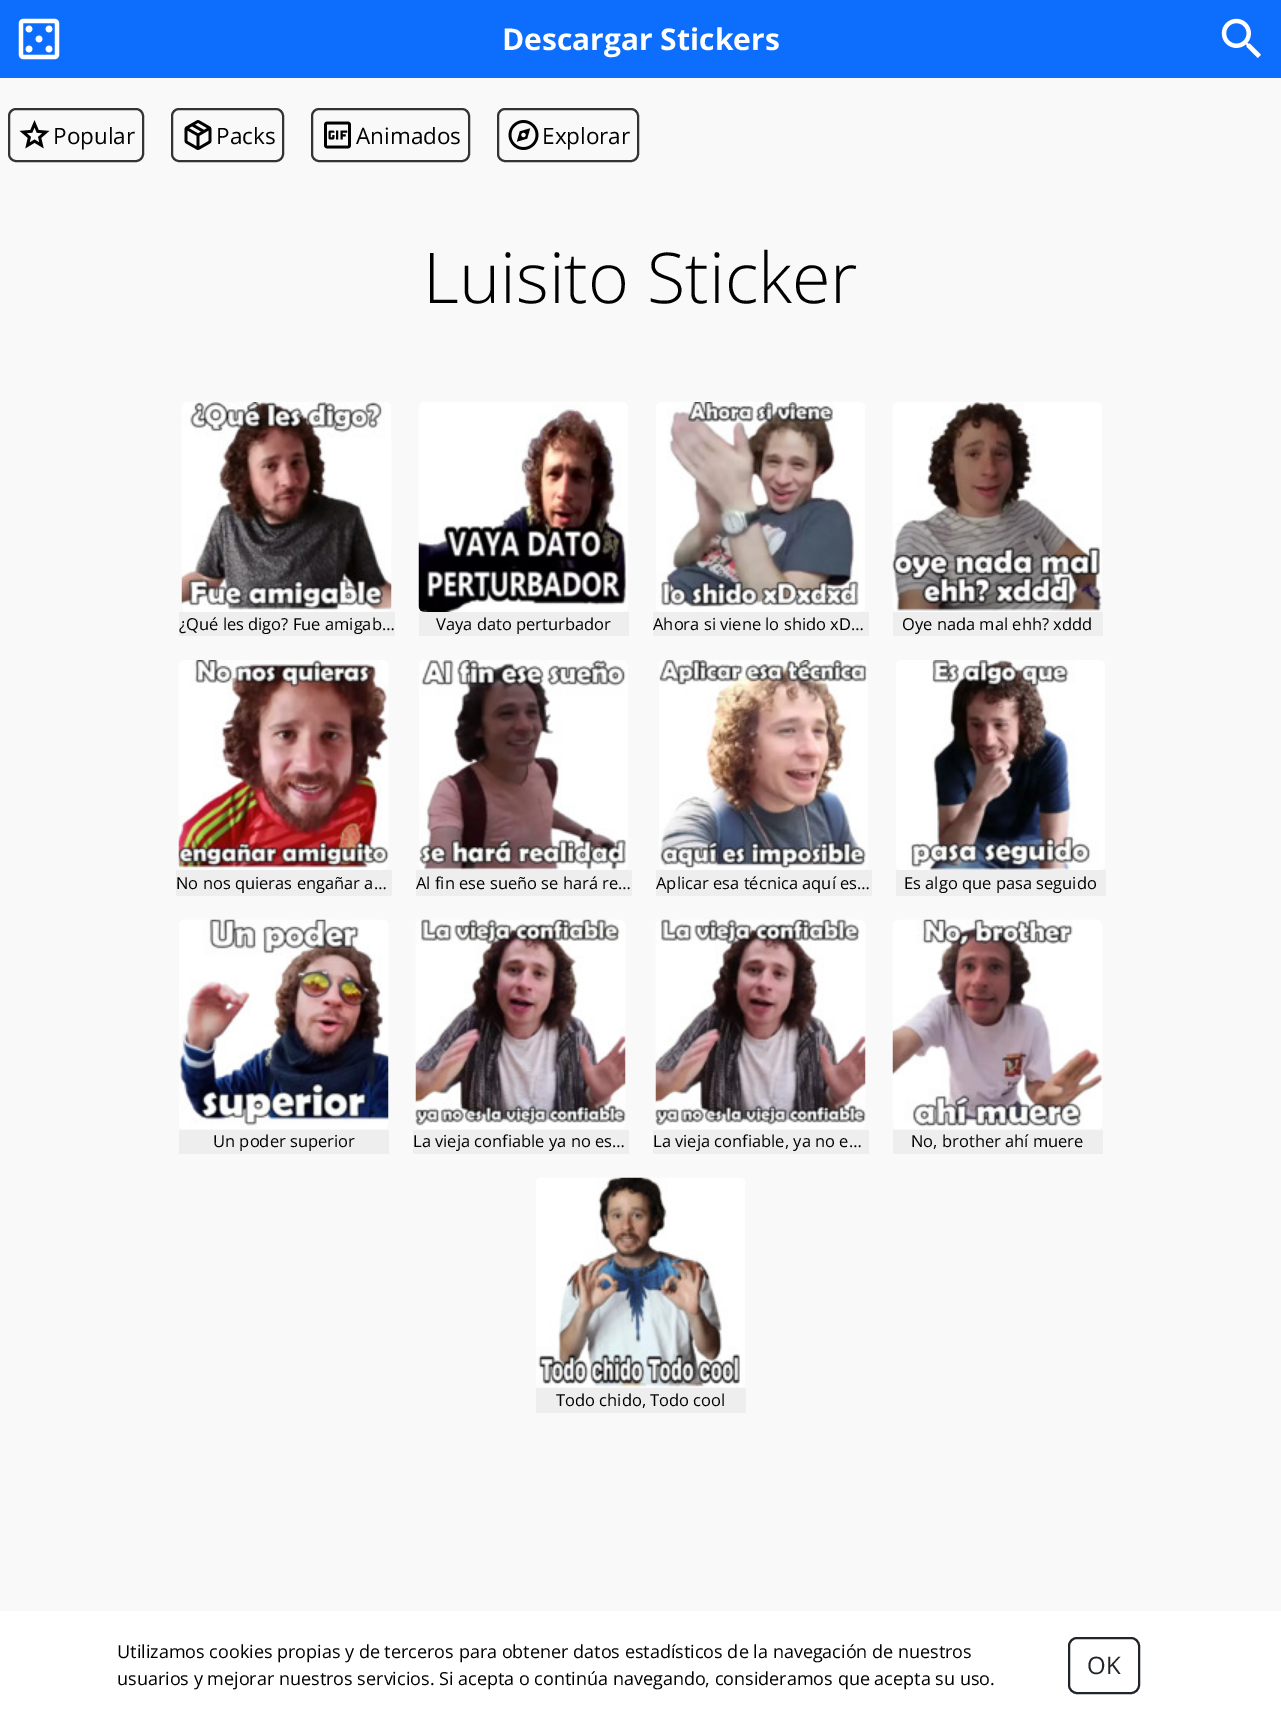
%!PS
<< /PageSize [1281 1718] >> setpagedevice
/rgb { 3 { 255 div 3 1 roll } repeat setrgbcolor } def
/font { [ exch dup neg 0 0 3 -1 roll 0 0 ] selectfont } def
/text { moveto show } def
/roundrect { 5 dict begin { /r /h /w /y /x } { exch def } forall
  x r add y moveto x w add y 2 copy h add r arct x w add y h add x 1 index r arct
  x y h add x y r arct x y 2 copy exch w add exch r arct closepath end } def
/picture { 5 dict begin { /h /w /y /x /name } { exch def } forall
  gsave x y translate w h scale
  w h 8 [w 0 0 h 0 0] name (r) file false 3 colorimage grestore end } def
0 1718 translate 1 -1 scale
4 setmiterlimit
249 249 249 rgb
0 0 1281 1718 rectfill
13 110 253 rgb
0 0 1281 78 rectfill
(img_01.rgb) 18 18 42 42 picture
(img_02.rgb) 1221 18 40 40 picture
51 51 51 rgb
2 setlinewidth
9 109 134 52 7 roundrect stroke
(img_03.rgb) 19 120 31 29 picture
172 109 111 52 7 roundrect stroke
(img_04.rgb) 184 120 28 30 picture
312 109 157 52 7 roundrect stroke
(img_05.rgb) 324 121 27 28 picture
498 109 140 52 7 roundrect stroke
(img_06.rgb) 508 120 31 30 picture
(img_07.rgb) 181 402 211 210 picture
238 238 238 rgb
179 612 216 24 rectfill
(img_08.rgb) 418 402 210 210 picture
419 612 210 24 rectfill
(img_09.rgb) 656 402 209 210 picture
653 612 216 24 rectfill
(img_10.rgb) 892 402 210 210 picture
893 612 210 24 rectfill
(img_11.rgb) 178 660 211 210 picture
176 870 216 26 rectfill
(img_12.rgb) 419 660 209 210 picture
416 870 216 26 rectfill
(img_13.rgb) 659 660 209 210 picture
656 870 216 26 rectfill
(img_14.rgb) 896 660 209 210 picture
896 870 210 26 rectfill
(img_15.rgb) 179 919 210 210 picture
179 1130 210 24 rectfill
(img_16.rgb) 415 919 211 210 picture
413 1130 216 24 rectfill
(img_17.rgb) 655 919 211 210 picture
653 1130 216 24 rectfill
(img_18.rgb) 892 919 211 210 picture
893 1130 210 24 rectfill
(img_19.rgb) 536 1177 209 210 picture
536 1388 210 25 rectfill
255 255 255 rgb
0 1611 1281 107 rectfill
33 37 41 rgb
1069 1638 70 55 8 roundrect stroke
/OpenSans-Bold 30 font
255 255 255 rgb
(Descargar Stickers) 502 50 text
/OpenSans-Regular 22.5 font
0 0 0 rgb
(Popular) 53 144 text
(Packs) 216 144 text
(Animados) 356 144 text
(Explorar) 542 144 text
/OpenSans-Light 70 font
(Luisito Sticker) 423 303 text
/OpenSans-Regular 16.5 font
(¿Qué les digo? Fue amigab…) 179 630 text
(Vaya dato perturbador) 436 630 text
(Ahora si viene lo shido xD…) 653 630 text
(Oye nada mal ehh? xddd) 902 630 text
(No nos quieras engañar a…) 176 889 text
(Al fin ese sueño se hará re…) 416 889 text
(Aplicar esa técnica aquí es…) 656 889 text
(Es algo que pasa seguido) 904 889 text
(Un poder superior) 213 1147 text
(La vieja confiable ya no es…) 413 1147 text
(La vieja confiable, ya no e…) 653 1147 text
(No, brother ahí muere) 911 1147 text
(Todo chido, Todo cool) 556 1406 text
/OpenSans-Regular 18 font
(Utilizamos cookies propias y de terceros para obtener datos estadísticos de la navegación de nuestros) 117 1658 text
(usuarios y mejorar nuestros servicios. Si acepta o continúa navegando, consideramos que acepta su uso.) 117 1685 text
/OpenSans-Regular 24 font
33 37 41 rgb
(OK) 1087 1674 text
showpage
